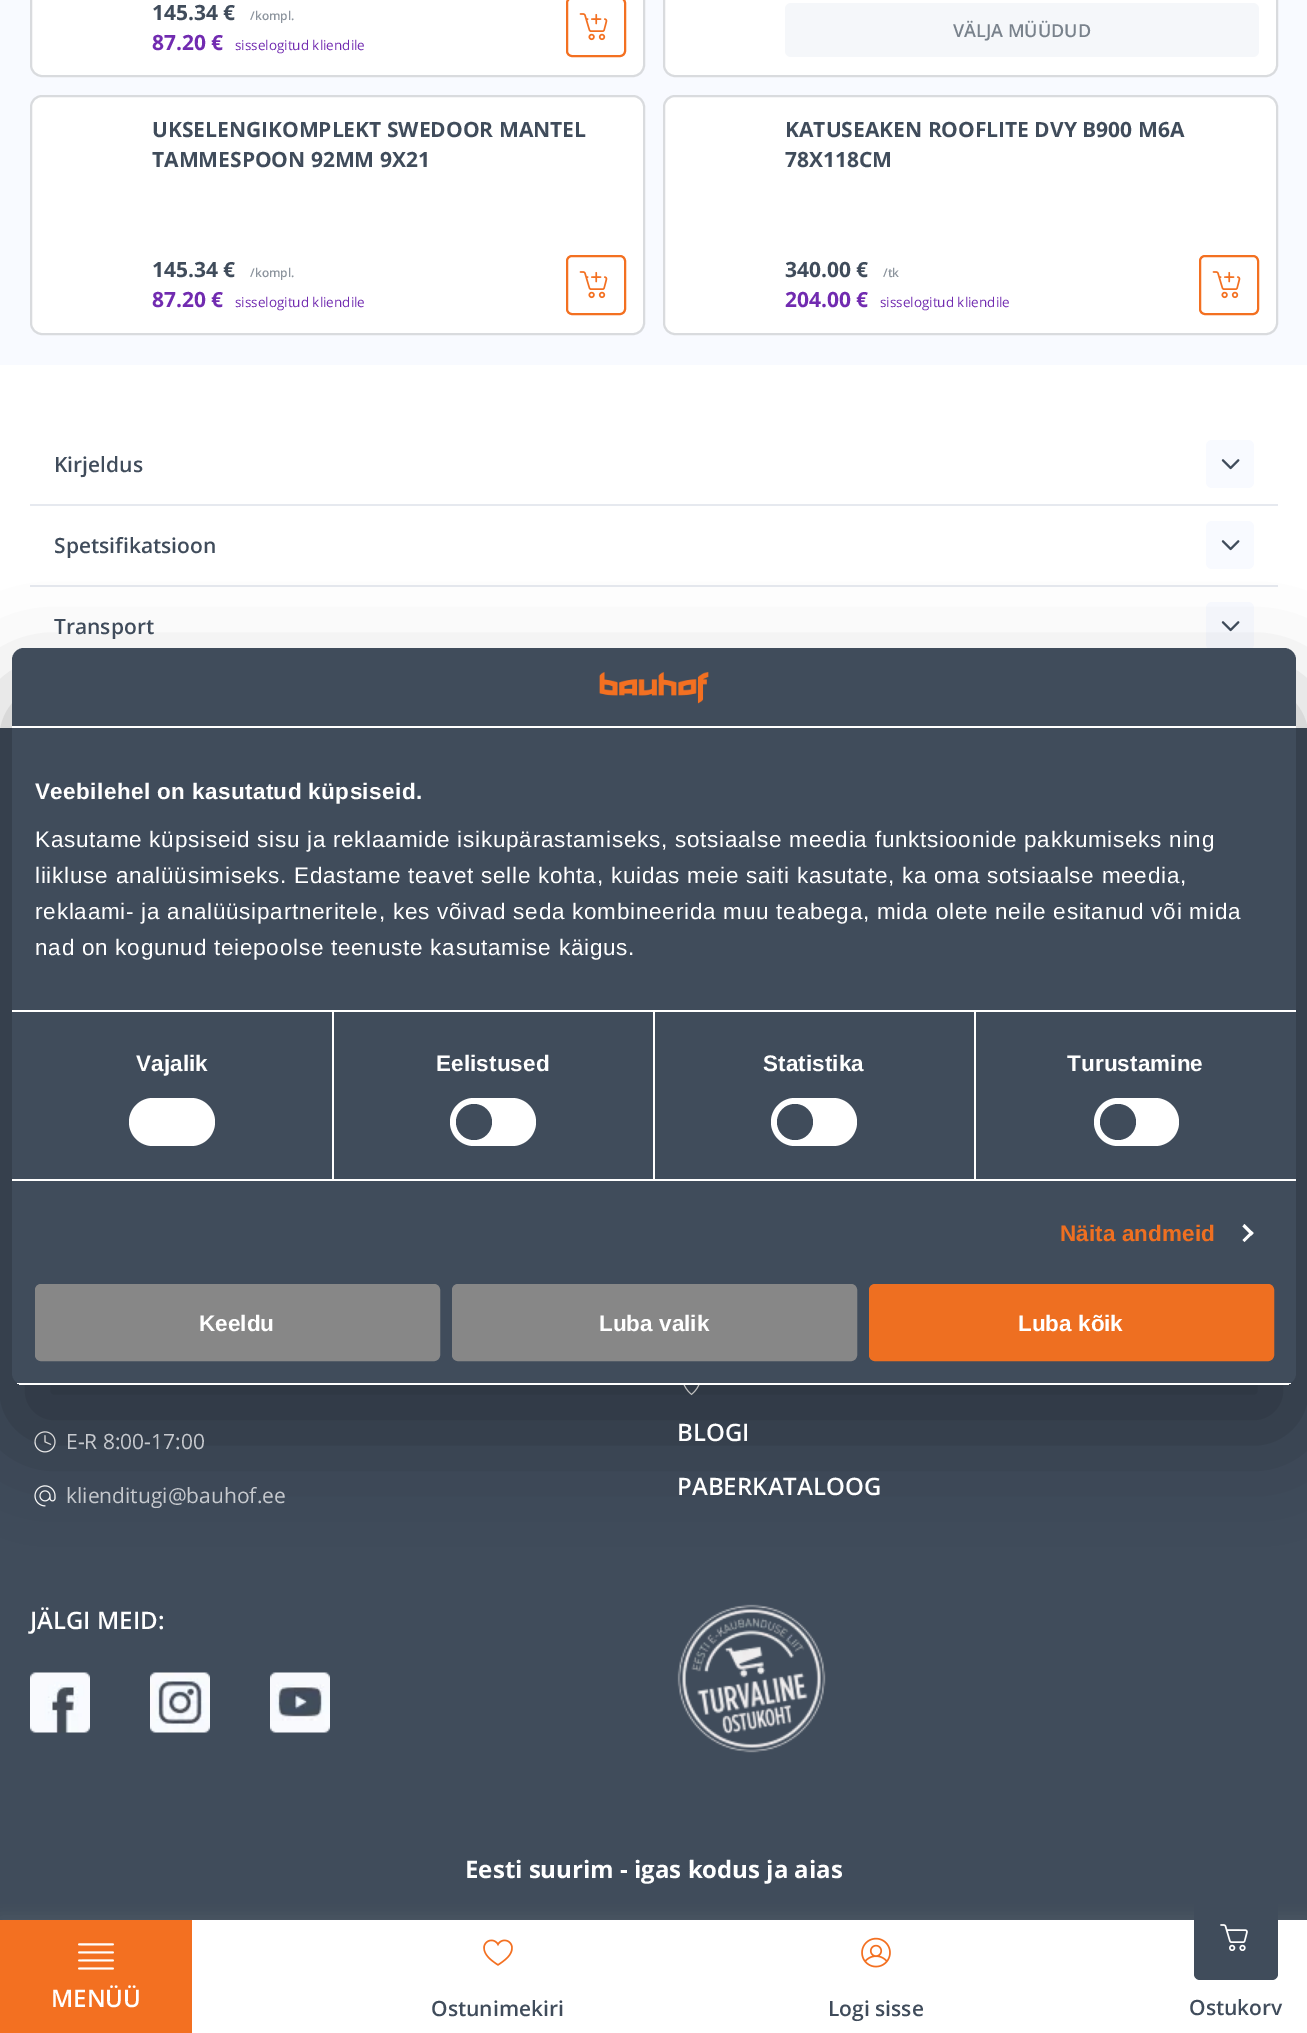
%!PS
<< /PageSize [1307 2033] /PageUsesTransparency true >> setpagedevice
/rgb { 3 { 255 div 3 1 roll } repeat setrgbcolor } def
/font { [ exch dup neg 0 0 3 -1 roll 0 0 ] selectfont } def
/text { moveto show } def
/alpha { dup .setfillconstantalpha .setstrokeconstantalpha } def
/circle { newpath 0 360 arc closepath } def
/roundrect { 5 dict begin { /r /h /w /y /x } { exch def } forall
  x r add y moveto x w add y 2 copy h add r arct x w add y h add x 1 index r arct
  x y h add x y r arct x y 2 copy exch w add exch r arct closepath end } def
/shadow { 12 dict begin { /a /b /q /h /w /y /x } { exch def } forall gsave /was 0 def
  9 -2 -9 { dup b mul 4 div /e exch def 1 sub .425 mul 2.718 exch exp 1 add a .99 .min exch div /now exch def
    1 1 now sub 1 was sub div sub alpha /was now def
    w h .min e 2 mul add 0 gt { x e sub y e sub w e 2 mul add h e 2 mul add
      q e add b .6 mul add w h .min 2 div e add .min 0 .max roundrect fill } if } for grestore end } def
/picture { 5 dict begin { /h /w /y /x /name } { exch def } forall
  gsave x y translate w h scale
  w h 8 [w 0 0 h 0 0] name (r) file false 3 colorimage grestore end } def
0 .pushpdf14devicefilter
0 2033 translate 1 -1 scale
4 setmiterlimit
255 255 255 rgb
0 0 1307 2033 rectfill
248 250 255 rgb
0 0 1307 365 rectfill
255 255 255 rgb
31 -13 613 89 11 roundrect gsave fill grestore
217 219 222 rgb
2 setlinewidth
stroke
243 112 33 rgb
567 -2 58 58 5 roundrect stroke
(img_01.rgb) 579 13 29 28 picture
255 255 255 rgb
664 -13 613 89 11 roundrect gsave fill grestore
217 219 222 rgb
stroke
245 247 250 rgb
785 3 474 54 6 roundrect fill
255 255 255 rgb
31 96 613 238 11 roundrect gsave fill grestore
217 219 222 rgb
stroke
243 112 33 rgb
567 256 58 58 5 roundrect stroke
(img_01.rgb) 579 271 29 28 picture
255 255 255 rgb
664 96 613 238 11 roundrect gsave fill grestore
217 219 222 rgb
stroke
243 112 33 rgb
1200 256 58 58 5 roundrect stroke
(img_01.rgb) 1212 271 29 28 picture
230 233 239 rgb
30 504 1248 2 rectfill
248 250 255 rgb
1206 440 48 48 6 roundrect fill
(img_02.rgb) 1221 459 19 11 picture
230 233 239 rgb
30 585 1248 2 rectfill
248 250 255 rgb
1206 521 48 48 6 roundrect fill
(img_02.rgb) 1221 540 19 11 picture
1206 602 48 48 6 roundrect fill
(img_02.rgb) 1221 621 19 11 picture
64 76 91 rgb
0 728 1307 1192 rectfill
(img_03.rgb) 34 1431 22 22 picture
(img_04.rgb) 34 1485 22 22 picture
(img_05.rgb) 683 1385 17 11 picture
(img_06.rgb) 30 1672 60 61 picture
(img_07.rgb) 150 1672 60 61 picture
(img_08.rgb) 270 1672 60 61 picture
(img_09.rgb) 677 1604 149 149 picture
141 143 154 rgb
0 1917 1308 114 0 7.5 0.15 shadow
255 255 255 rgb
192 1920 1115 113 rectfill
243 112 33 rgb
0 1920 192 113 rectfill
(img_10.rgb) 78 1943 36 27 picture
(img_11.rgb) 483 1939 30 27 picture
(img_12.rgb) 861 1937 30 31 picture
64 76 91 rgb
1194 1896 84 84 6 roundrect fill
(img_13.rgb) 1220 1924 28 27 picture
0 0 0 rgb
12 696 1284 737 12 51 0.3 shadow
64 76 91 rgb
12 648 1284 737 12 roundrect fill
255 255 255 rgb
12 726 1284 2 rectfill
(img_14.rgb) 599 671 110 33 picture
332 1011 2 168 rectfill
653 1011 2 168 rectfill
974 1011 2 168 rectfill
12 1010 1284 2 rectfill
12 1179 1284 2 rectfill
129 1098 86 48 24 roundrect fill
450 1098 86 48 24 roundrect fill
64 76 91 rgb
474 1122 18 circle fill
255 255 255 rgb
771 1098 86 48 24 roundrect fill
64 76 91 rgb
795 1122 18 circle fill
255 255 255 rgb
1094 1098 85 48 24 roundrect fill
64 76 91 rgb
1118 1122 18 circle fill
255 255 255 rgb
1244.5 1224 moveto 9 9 rlineto -2 2.5 rlineto -9 -9 rlineto closepath fill
1251.5 1231 moveto 2 2 rlineto -9 9 rlineto -2 -2 rlineto closepath fill
gsave
12 648 1284 737 12 roundrect clip newpath
12 1383 1284 2 rectfill
grestore
135 135 135 rgb
36.5 1285.5 402 74 4.5 roundrect gsave fill grestore
3 setlinewidth
stroke
453.5 1285.5 402 74 4.5 roundrect gsave fill grestore
stroke
238 111 33 rgb
870.5 1285.5 402 74 4.5 roundrect gsave fill grestore
stroke
/OpenSans-Bold 21 font
64 76 91 rgb
(145.34 €) 152 20 text
/OpenSans-SemiBold 12 font
140 148 157 rgb
(/kompl.) 250 20 text
/OpenSans-Bold 21 font
113 43 176 rgb
(87.20 €) 152 50 text
/OpenSans-Regular 13.5 font
(sisselogitud kliendile) 235 50 text
/OpenSans-SemiBold 18 font
121 130 140 rgb
(VÄLJA MÜÜDUD) 953 37 text
/OpenSans-Bold 21 font
64 76 91 rgb
(UKSELENGIKOMPLEKT SWEDOOR MANTEL) 152 137 text
(TAMMESPOON 92MM 9X21) 152 167 text
(145.34 €) 152 277 text
/OpenSans-SemiBold 12 font
140 148 157 rgb
(/kompl.) 250 277 text
/OpenSans-Bold 21 font
113 43 176 rgb
(87.20 €) 152 307 text
/OpenSans-Regular 13.5 font
(sisselogitud kliendile) 235 307 text
/OpenSans-Bold 21 font
64 76 91 rgb
(KATUSEAKEN ROOFLITE DVY B900 M6A) 785 137 text
(78X118CM) 785 167 text
(340.00 €) 785 277 text
/OpenSans-SemiBold 12 font
140 148 157 rgb
(/tk) 883 277 text
/OpenSans-Bold 21 font
113 43 176 rgb
(204.00 €) 785 307 text
/OpenSans-Regular 13.5 font
(sisselogitud kliendile) 880 307 text
/OpenSans-SemiBold 21 font
64 76 91 rgb
(Kirjeldus) 54 472 text
(Spetsifikatsioon) 54 553 text
(Transport) 54 634 text
/OpenSans-Regular 21 font
198 201 206 rgb
(E-R 8:00-17:00) 66 1449 text
(klienditugi@bauhof.ee) 66 1503 text
/OpenSans-SemiBold 24 font
255 255 255 rgb
(BLOGI) 677 1441 text
(PABERKATALOOG) 677 1495 text
(JÄLGI MEID:) 30 1629 text
/OpenSans-Bold 24 font
(Eesti suurim - igas kodus ja aias) 465 1878 text
/OpenSans-SemiBold 24 font
(MENÜÜ) 51 2007 text
/OpenSans-SemiBold 21 font
64 76 91 rgb
(Ostunimekiri) 431 2016 text
(Logi sisse) 828 2016 text
(Ostukorv) 1189 2015 text
/LiberationSans-Bold 22.5 font
255 255 255 rgb
35 799 moveto 0.4 0 (Veebilehel on kasutatud küpsiseid.) ashow
/LiberationSans-Regular 22.5 font
35 847 moveto 0.75 0 (Kasutame küpsiseid sisu ja reklaamide isikupärastamiseks, sotsiaalse meedia funktsioonide pakkumiseks ning) ashow
35 883 moveto 0.75 0 (liikluse analüüsimiseks. Edastame teavet selle kohta, kuidas meie saiti kasutate, ka oma sotsiaalse meedia,) ashow
35 919 moveto 0.75 0 (reklaami- ja analüüsipartneritele, kes võivad seda kombineerida muu teabega, mida olete neile esitanud või mida) ashow
35 955 moveto 0.75 0 (nad on kogunud teiepoolse teenuste kasutamise käigus.) ashow
/LiberationSans-Bold 22.5 font
136 1071 moveto 0.1 0 (Vajalik) ashow
436 1071 moveto 0.1 0 (Eelistused) ashow
763 1071 moveto 0.1 0 (Statistika) ashow
1067 1071 moveto 0.1 0 (Turustamine) ashow
238 111 33 rgb
1060 1241 moveto 0.1 0 (Näita andmeid) ashow
255 255 255 rgb
(Keeldu) 199 1331 text
(Luba valik) 599 1331 text
(Luba kõik) 1018 1331 text
.poppdf14devicefilter showpage
